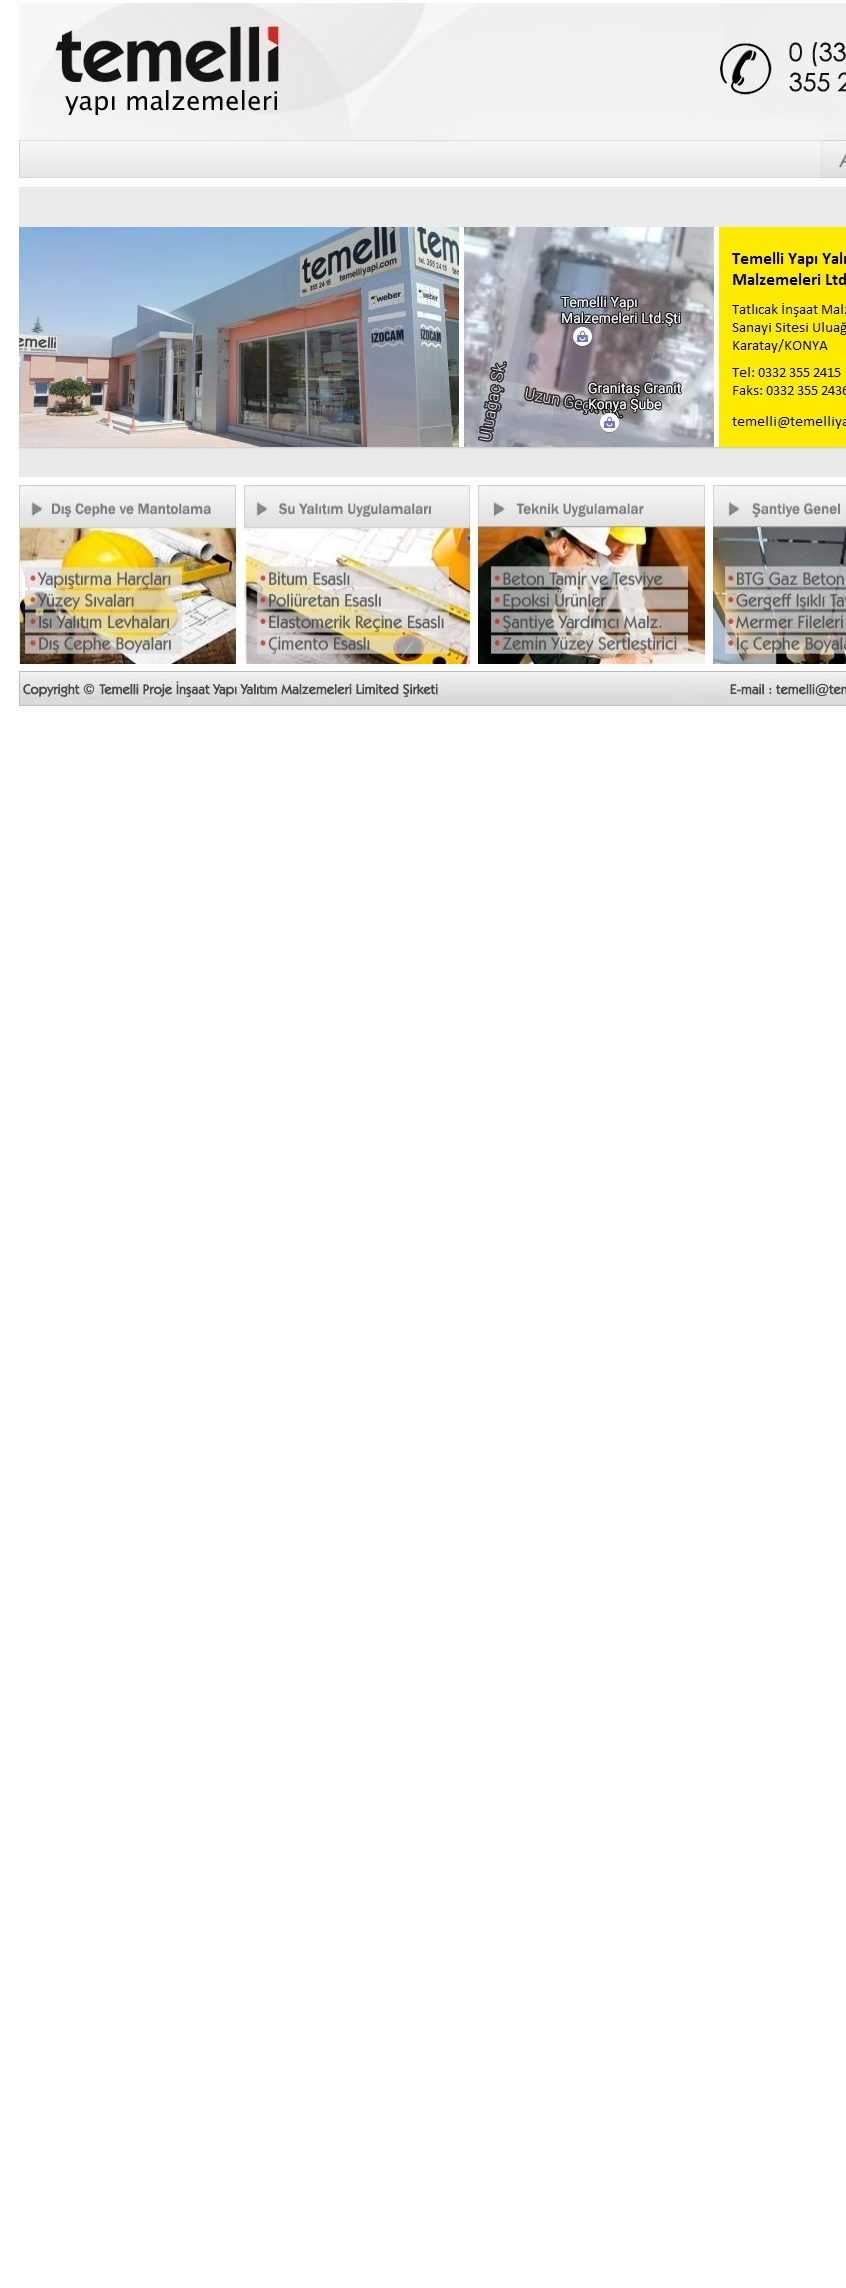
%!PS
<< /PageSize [846 2288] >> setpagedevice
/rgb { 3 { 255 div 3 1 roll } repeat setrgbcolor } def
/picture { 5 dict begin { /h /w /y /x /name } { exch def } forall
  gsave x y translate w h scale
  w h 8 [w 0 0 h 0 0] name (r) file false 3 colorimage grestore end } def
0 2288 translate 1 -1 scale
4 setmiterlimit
255 255 255 rgb
0 0 846 2288 rectfill
(img_01.rgb) 19 3 827 175 picture
(img_02.rgb) 19 187 827 290 picture
(img_03.rgb) 19 484 827 180 picture
(img_04.rgb) 19 671 827 35 picture
showpage
